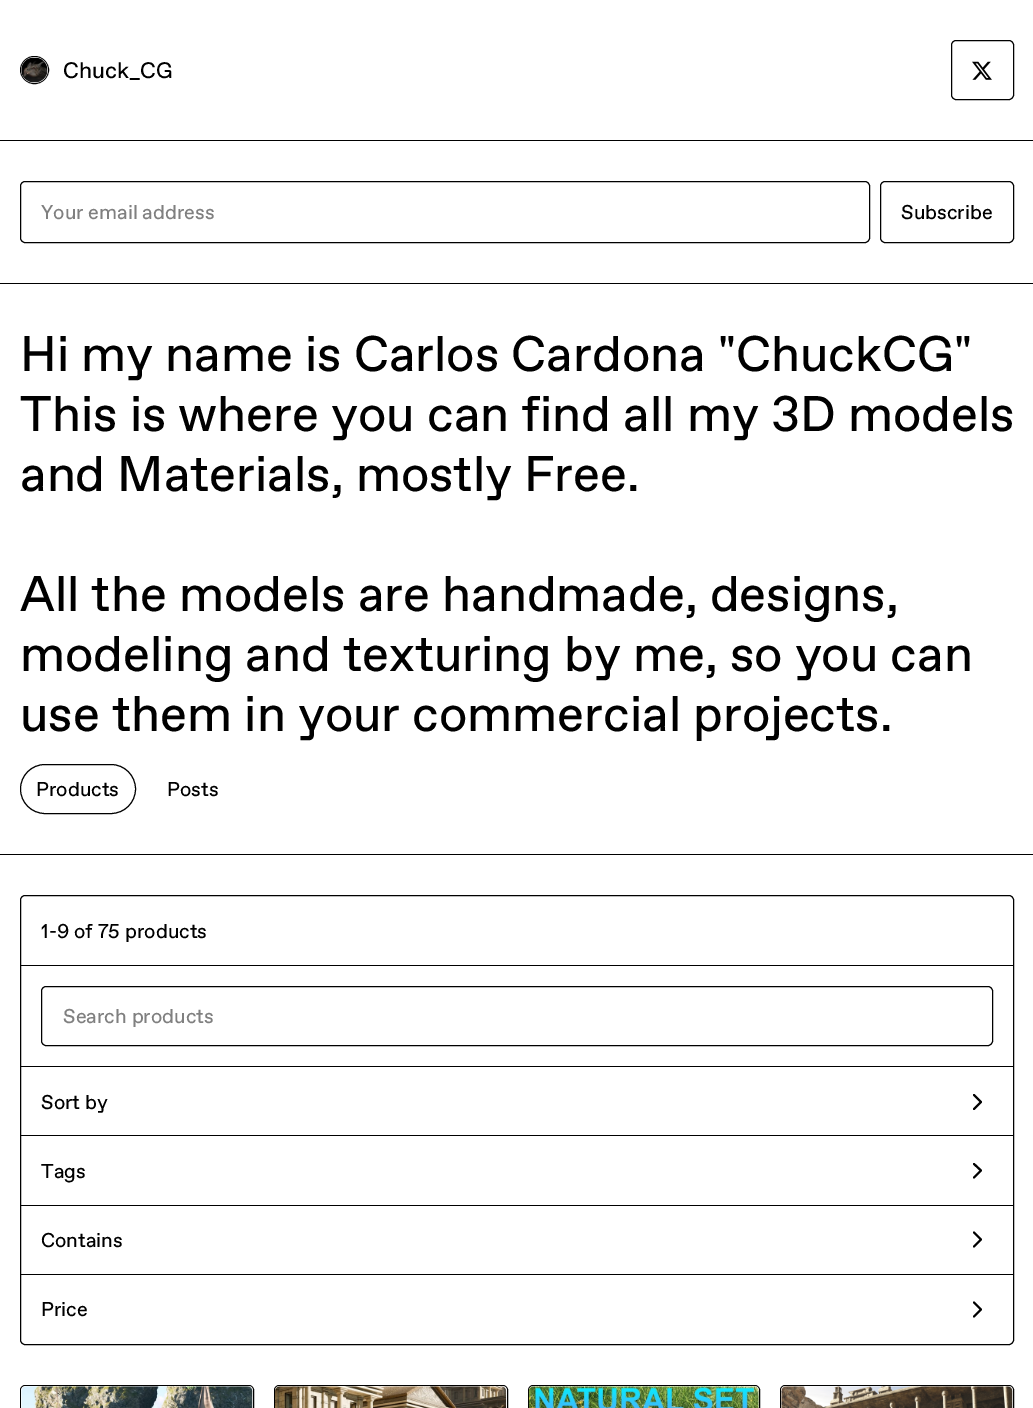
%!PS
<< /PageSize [1033 1408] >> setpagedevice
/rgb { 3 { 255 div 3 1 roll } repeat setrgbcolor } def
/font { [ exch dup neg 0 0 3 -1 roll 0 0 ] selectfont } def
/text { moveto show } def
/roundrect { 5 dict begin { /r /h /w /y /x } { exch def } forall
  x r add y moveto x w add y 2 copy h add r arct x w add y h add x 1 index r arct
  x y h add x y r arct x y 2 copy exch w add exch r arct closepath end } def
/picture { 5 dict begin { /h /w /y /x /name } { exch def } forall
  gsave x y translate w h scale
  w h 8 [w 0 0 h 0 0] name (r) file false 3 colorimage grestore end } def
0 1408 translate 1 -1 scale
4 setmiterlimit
255 255 255 rgb
0 0 1033 1408 rectfill
0 0 0 rgb
0 140 1033 1 rectfill
20.5 56.5 28 27 13.5 roundrect stroke
(img_01.rgb) 21 57 27 26 picture
951.5 40.5 62 59 4.5 roundrect stroke
(img_02.rgb) 972 61 20 19 picture
0 283 1033 1 rectfill
20.5 181.5 849 61 4.5 roundrect stroke
880.5 181.5 133 61 4.5 roundrect stroke
0 854 1033 1 rectfill
20.5 764.5 115 49 24.5 roundrect stroke
20.5 895.5 993 449 4.5 roundrect stroke
21 965 992 1 rectfill
21 1066 992 1 rectfill
41.5 986.5 951 59 4.5 roundrect stroke
21 1135 992 1 rectfill
2 setlinewidth
1 setlinecap
1 setlinejoin
974 1095 moveto 7 7 rlineto -7 7 rlineto stroke
21 1205 992 1 rectfill
974 1164 moveto 7 6.5 rlineto -7 7 rlineto stroke
21 1274 992 1 rectfill
974 1232.5 moveto 7 7 rlineto -7 7 rlineto stroke
974 1302.5 moveto 7 7 rlineto -7 7 rlineto stroke
1 setlinewidth
0 setlinecap
0 setlinejoin
20.5 1385.5 233 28 4.5 roundrect stroke
(img_03.rgb) 21 1386 232 22 picture
274.5 1385.5 233 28 4.5 roundrect stroke
(img_04.rgb) 275 1386 232 22 picture
528.5 1385.5 231 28 4.5 roundrect stroke
(img_05.rgb) 528 1386 231 22 picture
780.5 1385.5 233 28 4.5 roundrect stroke
(img_06.rgb) 781 1386 232 22 picture
/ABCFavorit-Regular 22.5 font
(Chuck_CG) 63 78 text
/ABCFavorit-Regular 20 font
128 128 128 rgb
(Your email address) 41 219 text
0 0 0 rgb
(Subscribe) 901 219 text
/ABCFavorit-Regular 50 font
(Hi my name is Carlos Cardona "ChuckCG") 20 371 text
(This is where you can find all my 3D models) 20 431 text
(and Materials, mostly Free.) 20 491 text
(All the models are handmade, designs,) 20 611 text
(modeling and texturing by me, so you can) 20 671 text
(use them in your commercial projects.) 20 731 text
/ABCFavorit-Regular 20 font
(Products) 36 796 text
(Posts) 167 796 text
(1-9 of 75 products) 41 938 text
128 128 128 rgb
(Search products) 63 1023 text
0 0 0 rgb
(Sort by) 41 1109 text
(Tags) 41 1178 text
(Contains) 41 1247 text
(Price) 41 1316 text
showpage
